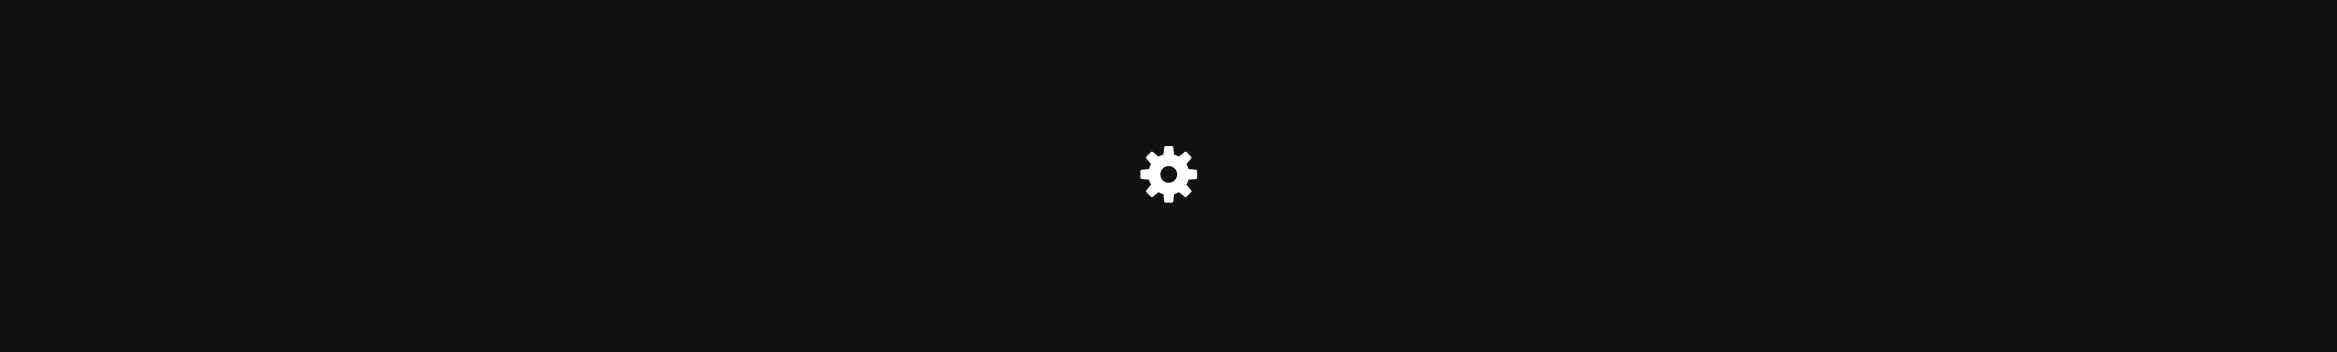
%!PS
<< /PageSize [2337 352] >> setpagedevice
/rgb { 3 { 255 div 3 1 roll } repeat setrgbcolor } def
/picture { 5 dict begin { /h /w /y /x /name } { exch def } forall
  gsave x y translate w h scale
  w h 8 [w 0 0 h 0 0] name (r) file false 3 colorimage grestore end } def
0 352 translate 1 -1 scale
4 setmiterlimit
17 17 17 rgb
0 0 2337 352 rectfill
(img_01.rgb) 1140 146 58 57 picture
showpage
